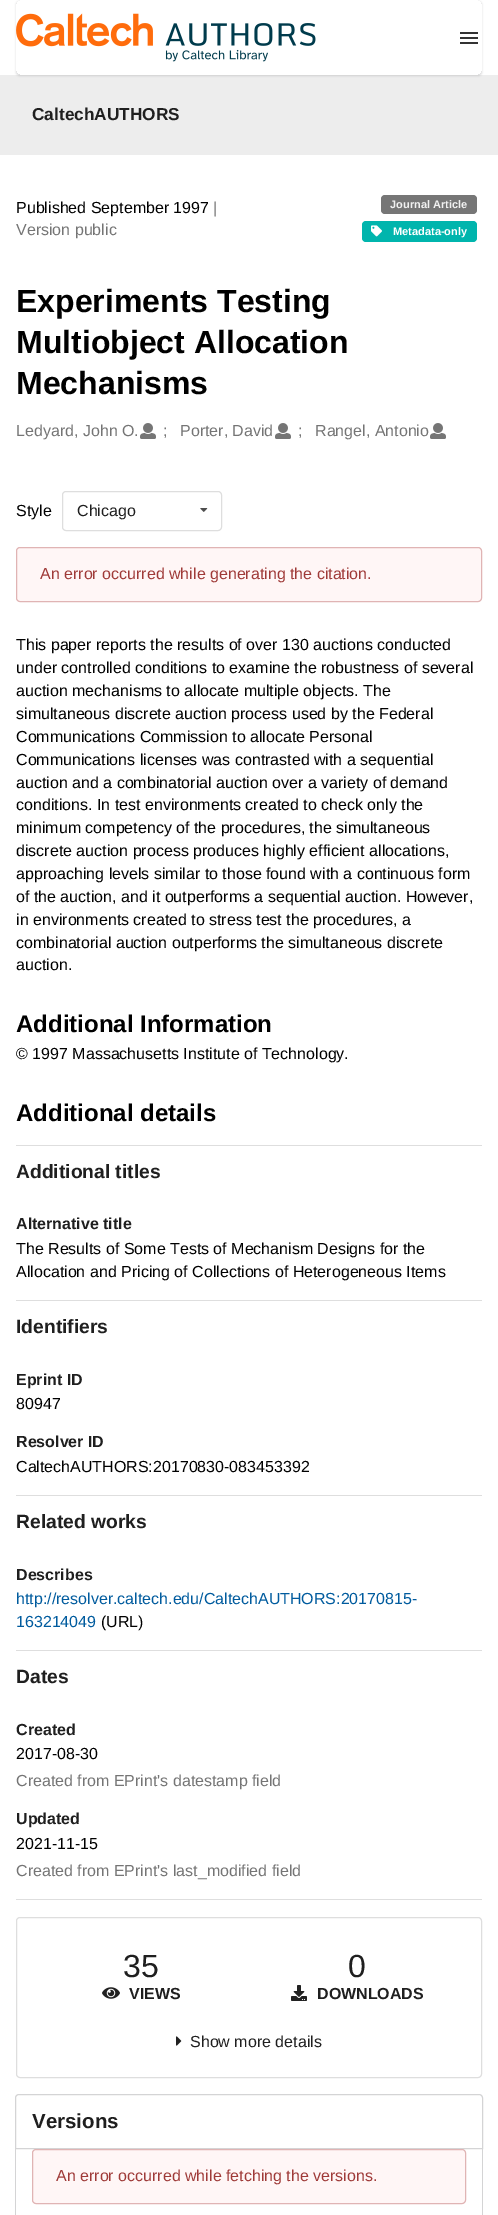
%!PS
<< /PageSize [498 2215] /PageUsesTransparency true >> setpagedevice
/rgb { 3 { 255 div 3 1 roll } repeat setrgbcolor } def
/font { [ exch dup neg 0 0 3 -1 roll 0 0 ] selectfont } def
/text { moveto show } def
/alpha { dup .setfillconstantalpha .setstrokeconstantalpha } def
/roundrect { 5 dict begin { /r /h /w /y /x } { exch def } forall
  x r add y moveto x w add y 2 copy h add r arct x w add y h add x 1 index r arct
  x y h add x y r arct x y 2 copy exch w add exch r arct closepath end } def
/shadow { 12 dict begin { /a /b /q /h /w /y /x } { exch def } forall gsave /was 0 def
  9 -2 -9 { dup b mul 4 div /e exch def 1 sub .425 mul 2.718 exch exp 1 add a .99 .min exch div /now exch def
    1 1 now sub 1 was sub div sub alpha /was now def
    w h .min e 2 mul add 0 gt { x e sub y e sub w e 2 mul add h e 2 mul add
      q e add b .6 mul add w h .min 2 div e add .min 0 .max roundrect fill } if } for grestore end } def
/picture { 5 dict begin { /h /w /y /x /name } { exch def } forall
  gsave x y translate w h scale
  w h 8 [w 0 0 h 0 0] name (r) file false 3 colorimage grestore end } def
0 .pushpdf14devicefilter
0 2215 translate 1 -1 scale
4 setmiterlimit
255 255 255 rgb
0 0 498 2215 rectfill
237 237 237 rgb
0 75 498 80 rectfill
gsave
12 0 moveto 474 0 rlineto 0 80 rlineto -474 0 rlineto closepath 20 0 moveto 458 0 rlineto 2 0 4 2 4 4 rcurveto 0 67 rlineto 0 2 -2 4 -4 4 rcurveto -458 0 rlineto -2 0 -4 -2 -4 -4 rcurveto 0 -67 rlineto 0 -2 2 -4 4 -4 rcurveto closepath eoclip newpath
34 36 38 rgb
16 1 466 75 4 1 0.15 shadow
grestore
(img_01.rgb) 16 13 300 49 picture
51 51 51 rgb
460 37 18 2 rectfill
460 32 18 2 rectfill
460 42 18 2 rectfill
118 118 118 rgb
381 195 96 19 4 roundrect fill
0 181 173 rgb
362 221 115 21 4 roundrect fill
(img_02.rgb) 371 225 11 12 picture
(img_03.rgb) 140 423 16 16 picture
(img_03.rgb) 275 423 16 16 picture
(img_03.rgb) 430 423 16 16 picture
222 222 222 rgb
62.5 491.5 159 39 3.5 roundrect stroke
(img_04.rgb) 200 508 8 4 picture
255 246 246 rgb
16.5 547.5 465 54 3.5 roundrect gsave fill grestore
224 180 180 rgb
stroke
222 222 222 rgb
16 1145 466 1 rectfill
16 1300 466 1 rectfill
16 1495 466 1 rectfill
16 1650 466 1 rectfill
16 1899 466 1 rectfill
16.5 1917.5 465 160 3.5 roundrect stroke
(img_05.rgb) 102 1987 18 12 picture
(img_06.rgb) 291 1985 16 16 picture
(img_07.rgb) 176 2036 6 10 picture
212 212 213 rgb
19 2094.5 moveto 460 0 rlineto 2 0 3.5 1.5 3.5 3.5 rcurveto 0 50.5 rlineto -467 0 rlineto 0 -50.5 rlineto 0 -2 1.5 -3.5 3.5 -3.5 rcurveto closepath stroke
15 2149 moveto 468 0 rlineto 0 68 rlineto 0 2 -2 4 -4 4 rcurveto -460 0 rlineto -2 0 -4 -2 -4 -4 rcurveto closepath 16 2149 moveto 466 0 rlineto 0 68 rlineto 0 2 -1 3 -3 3 rcurveto -460 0 rlineto -2 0 -3 -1 -3 -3 rcurveto closepath eofill
255 246 246 rgb
32.5 2149.5 433 54 3.5 roundrect gsave fill grestore
224 180 180 rgb
stroke
/LiberationSans-Bold 17.25 font
31 31 31 rgb
(CaltechAUTHORS) 32 120 text
/LiberationSans-Regular 16 font
0 0 0 rgb
(Published September 1997) 16 213 text
117 117 117 rgb
(|) 213 213 text
(Version public) 16 235 text
/LiberationSans-Bold 11 font
241 241 241 rgb
(Journal Article) 390 208 text
255 255 255 rgb
(Metadata-only) 393 235 text
/LiberationSans-Bold 32 font
0 0 0 rgb
(Experiments Testing) 16 312 text
(Multiobject Allocation) 16 353 text
(Mechanisms) 16 394 text
/LiberationSans-Regular 16 font
117 117 117 rgb
(Ledyard, John O.) 16 436 text
(;) 163 436 text
(Porter, David) 180 436 text
(;) 298 436 text
(Rangel, Antonio) 315 436 text
0 0 0 rgb
(Style) 16 516 text
31 31 31 rgb
(Chicago) 77 516 text
159 58 56 rgb
(An error occurred while generating the citation.) 40 579 text
0 0 0 rgb
(This paper reports the results of over 130 auctions conducted) 16 650 text
(under controlled conditions to examine the robustness of several) 16 673 text
(auction mechanisms to allocate multiple objects. The) 16 696 text
(simultaneous discrete auction process used by the Federal) 16 719 text
(Communications Commission to allocate Personal) 16 742 text
(Communications licenses was contrasted with a sequential) 16 765 text
(auction and a combinatorial auction over a variety of demand) 16 788 text
(conditions. In test environments created to check only the) 16 810 text
(minimum competency of the procedures, the simultaneous) 16 833 text
(discrete auction process produces highly efficient allocations,) 16 856 text
(approaching levels similar to those found with a continuous form) 16 879 text
(of the auction, and it outperforms a sequential auction. However,) 16 902 text
(in environments created to stress test the procedures, a) 16 925 text
(combinatorial auction outperforms the simultaneous discrete) 16 948 text
(auction.) 16 970 text
/LiberationSans-Bold 24 font
(Additional Information) 16 1032 text
/LiberationSans-Regular 16 font
(© 1997 Massachusetts Institute of Technology.) 16 1059 text
/LiberationSans-Bold 24 font
(Additional details) 16 1121 text
/LiberationSans-Bold 19.25 font
31 31 31 rgb
(Additional titles) 16 1178 text
/LiberationSans-Bold 16 font
(Alternative title) 16 1229 text
/LiberationSans-Regular 16 font
0 0 0 rgb
(The Results of Some Tests of Mechanism Designs for the) 16 1254 text
(Allocation and Pricing of Collections of Heterogeneous Items) 16 1277 text
/LiberationSans-Bold 19.25 font
31 31 31 rgb
(Identifiers) 16 1333 text
/LiberationSans-Bold 16 font
(Eprint ID) 16 1385 text
/LiberationSans-Regular 16 font
0 0 0 rgb
(80947) 16 1409 text
/LiberationSans-Bold 16 font
31 31 31 rgb
(Resolver ID) 16 1447 text
/LiberationSans-Regular 16 font
0 0 0 rgb
(CaltechAUTHORS:20170830-083453392) 16 1472 text
/LiberationSans-Bold 19.25 font
31 31 31 rgb
(Related works) 16 1528 text
/LiberationSans-Bold 16 font
(Describes) 16 1580 text
/LiberationSans-Regular 16 font
0 91 158 rgb
(http://resolver.caltech.edu/CaltechAUTHORS:20170815-) 16 1604 text
(163214049) 16 1627 text
0 0 0 rgb
(\(URL\)) 101 1627 text
/LiberationSans-Bold 19.25 font
31 31 31 rgb
(Dates) 16 1683 text
/LiberationSans-Bold 16 font
(Created) 16 1735 text
/LiberationSans-Regular 16 font
0 0 0 rgb
(2017-08-30) 16 1759 text
117 117 117 rgb
(Created from EPrint's datestamp field) 16 1786 text
/LiberationSans-Bold 16 font
31 31 31 rgb
(Updated) 16 1824 text
/LiberationSans-Regular 16 font
0 0 0 rgb
(2021-11-15) 16 1849 text
117 117 117 rgb
(Created from EPrint's last_modified field) 16 1876 text
/LiberationSans-Regular 32 font
31 31 31 rgb
(35) 123 1977 text
/LiberationSans-Bold 16 font
(VIEWS) 129 1999 text
/LiberationSans-Regular 32 font
(0) 348 1977 text
/LiberationSans-Bold 16 font
(DOWNLOADS) 317 1999 text
/LiberationSans-Regular 16 font
(Show more details) 190 2047 text
/LiberationSans-Bold 20.5 font
(Versions) 32 2128 text
/LiberationSans-Regular 16 font
159 58 56 rgb
(An error occurred while fetching the versions.) 56 2181 text
.poppdf14devicefilter showpage
